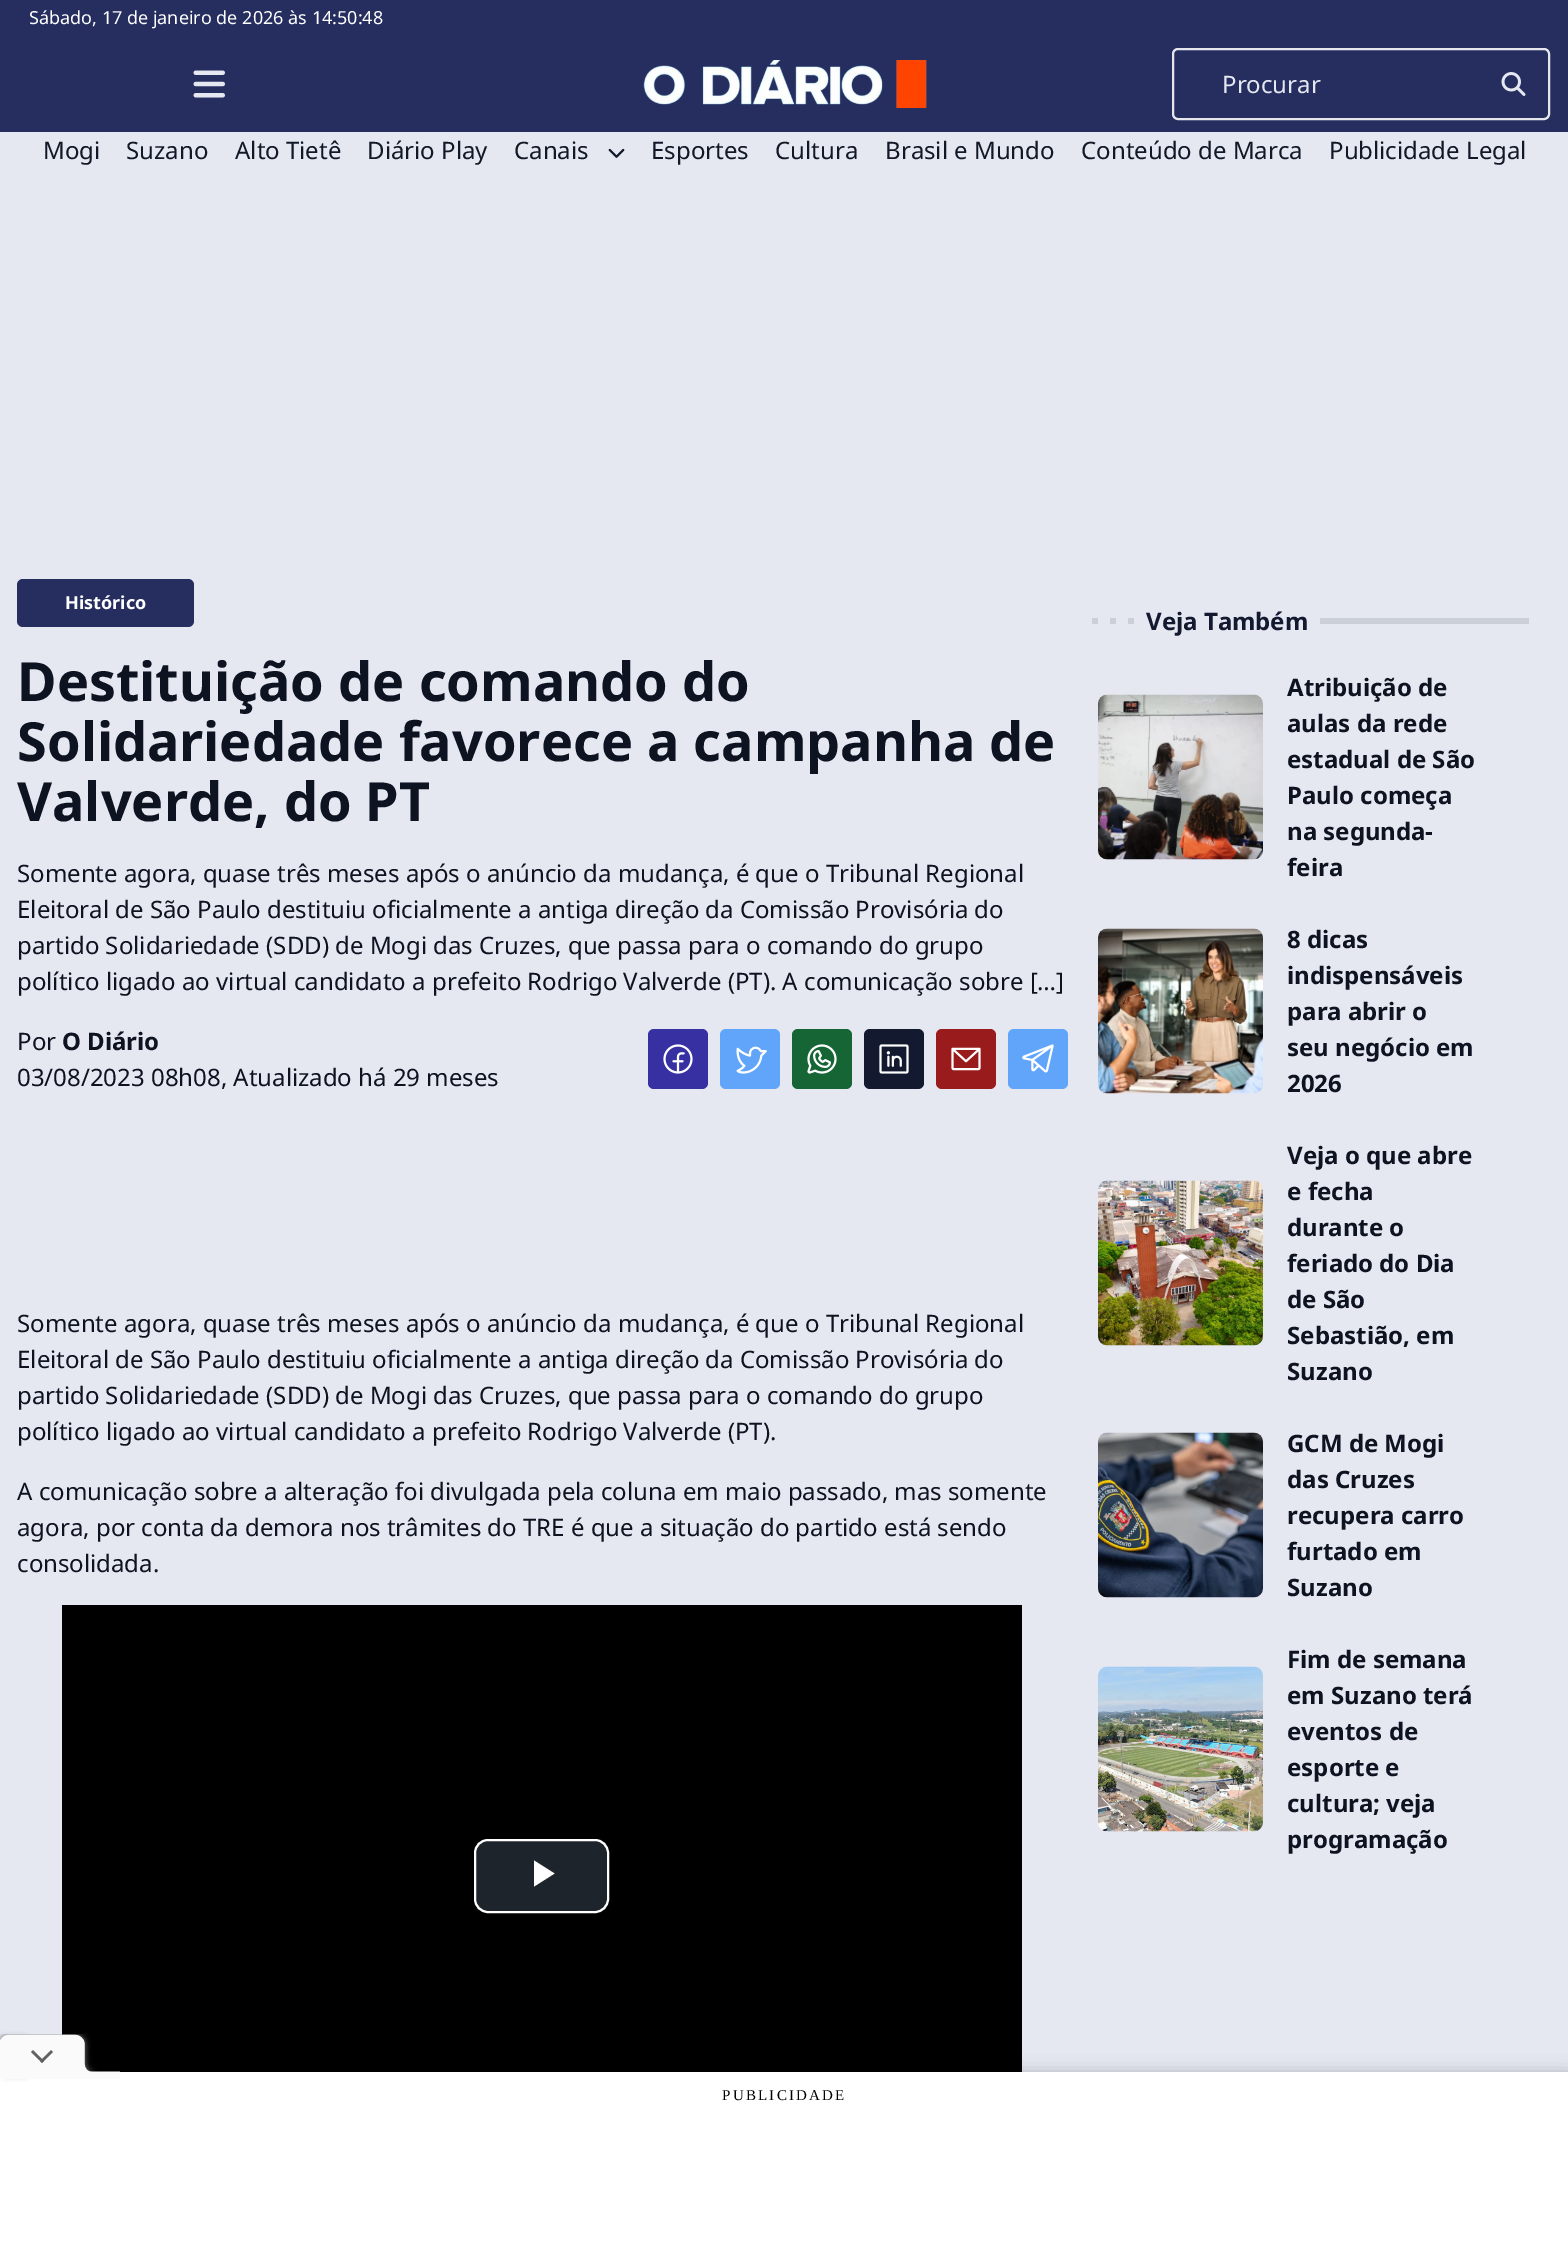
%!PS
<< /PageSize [1568 2266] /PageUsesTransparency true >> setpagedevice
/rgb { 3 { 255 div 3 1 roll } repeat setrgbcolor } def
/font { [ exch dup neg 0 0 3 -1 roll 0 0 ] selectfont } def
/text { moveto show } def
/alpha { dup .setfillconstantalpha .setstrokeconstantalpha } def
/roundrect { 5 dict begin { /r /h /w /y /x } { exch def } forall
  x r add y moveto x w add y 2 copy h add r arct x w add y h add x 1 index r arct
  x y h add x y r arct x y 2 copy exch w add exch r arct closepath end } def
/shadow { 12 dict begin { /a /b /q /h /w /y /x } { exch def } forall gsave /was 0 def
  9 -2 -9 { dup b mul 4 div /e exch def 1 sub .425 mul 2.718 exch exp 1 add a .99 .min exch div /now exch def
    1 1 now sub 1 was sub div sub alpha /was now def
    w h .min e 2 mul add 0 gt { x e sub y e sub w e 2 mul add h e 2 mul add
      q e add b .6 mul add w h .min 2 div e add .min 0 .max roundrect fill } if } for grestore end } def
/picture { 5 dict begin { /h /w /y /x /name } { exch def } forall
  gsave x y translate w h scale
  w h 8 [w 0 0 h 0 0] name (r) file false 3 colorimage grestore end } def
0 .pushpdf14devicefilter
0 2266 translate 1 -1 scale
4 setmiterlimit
229 231 241 rgb
0 0 1568 2266 rectfill
37 46 95 rgb
0 0 1568 132 rectfill
(img_01.rgb) 193 70 32 28 picture
(img_02.rgb) 643 60 284 48 picture
229 231 235 rgb
2 setlinewidth
1173 49 376 70 5 roundrect stroke
(img_03.rgb) 1501 72 25 24 picture
(img_04.rgb) 608 148 17 10 picture
37 46 95 rgb
17 579 177 48 6 roundrect fill
55 48 163 rgb
648 1029 60 60 6 roundrect fill
(img_05.rgb) 663 1044 30 30 picture
96 165 250 rgb
720 1029 60 60 6 roundrect fill
(img_06.rgb) 736 1046 31 28 picture
22 101 52 rgb
792 1029 60 60 6 roundrect fill
(img_07.rgb) 807 1044 30 30 picture
19 26 48 rgb
864 1029 60 60 6 roundrect fill
(img_08.rgb) 879 1044 30 30 picture
153 27 27 rgb
936 1029 60 60 6 roundrect fill
(img_09.rgb) 951 1047 30 24 picture
96 165 250 rgb
1008 1029 60 60 6 roundrect fill
(img_10.rgb) 1022 1044 32 29 picture
0 0 0 rgb
62 1605 960 467 rectfill
30 36 44 rgb
475 1840 133 72 13 roundrect gsave fill grestore
255 255 255 rgb
stroke
534 1860.5 moveto 0 26 rlineto 20.5 -13 rlineto closepath fill
202 207 216 rgb
1092 618 6 6 rectfill
1110 618 6 6 rectfill
1128 618 6 6 rectfill
1320 618 209 6 rectfill
(img_11.rgb) 1098 694 165 166 picture
(img_12.rgb) 1098 928 165 166 picture
(img_13.rgb) 1098 1180 165 166 picture
(img_14.rgb) 1098 1432 165 166 picture
(img_15.rgb) 1098 1666 165 166 picture
0 0 0 rgb
0 2072 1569 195 0 7.5 0.2 shadow
255 255 255 rgb
0 2072 1568 194 rectfill
0 0 0 rgb
0 2037 30 39 6 3 0.27 shadow
(img_16.rgb) 0 2034 120 45 picture
/NotoSans-Regular 18 font
255 255 255 rgb
(Sábado, 17 de janeiro de 2026 às 14:50:48) 29 24 text
/NotoSans-Regular 24 font
229 231 241 rgb
(Procurar) 1222 93 text
17 24 39 rgb
(Mogi) 43 159 text
(Suzano) 126 159 text
(Alto Tietê) 235 159 text
(Diário Play) 367 159 text
(Canais) 514 159 text
(Esportes) 651 159 text
(Cultura) 775 159 text
(Brasil e Mundo) 885 159 text
(Conteúdo de Marca) 1081 159 text
(Publicidade Legal) 1329 159 text
/NotoSans-Bold 18 font
255 255 255 rgb
(Histórico) 65 609 text
/NotoSans-Bold 54 font
13 19 32 rgb
(Destituição de comando do) 17 701 text
(Solidariedade favorece a campanha de) 17 761 text
(Valverde, do PT) 17 821 text
/NotoSans-Regular 24 font
(Somente agora, quase três meses após o anúncio da mudança, é que o Tribunal Regional) 17 882 text
(Eleitoral de São Paulo destituiu oficialmente a antiga direção da Comissão Provisória do) 17 918 text
(partido Solidariedade \(SDD\) de Mogi das Cruzes, que passa para o comando do grupo) 17 954 text
(político ligado ao virtual candidato a prefeito Rodrigo Valverde \(PT\). A comunicação sobre […]) 17 990 text
(Por) 17 1050 text
/NotoSans-Bold 24 font
(O Diário) 62 1050 text
/NotoSans-Regular 24 font
(03/08/2023 08h08, Atualizado há 29 meses) 17 1086 text
(Somente agora, quase três meses após o anúncio da mudança, é que o Tribunal Regional) 17 1332 text
(Eleitoral de São Paulo destituiu oficialmente a antiga direção da Comissão Provisória do) 17 1368 text
(partido Solidariedade \(SDD\) de Mogi das Cruzes, que passa para o comando do grupo) 17 1404 text
(político ligado ao virtual candidato a prefeito Rodrigo Valverde \(PT\).) 17 1440 text
(A comunicação sobre a alteração foi divulgada pela coluna em maio passado, mas somente) 17 1500 text
(agora, por conta da demora nos trâmites do TRE é que a situação do partido está sendo) 17 1536 text
(consolidada.) 17 1572 text
/NotoSans-Bold 24 font
19 26 48 rgb
(Veja Também) 1146 630 text
13 19 32 rgb
(Atribuição de) 1287 696 text
(aulas da rede) 1287 732 text
(estadual de São) 1287 768 text
(Paulo começa) 1287 804 text
(na segunda-) 1287 840 text
(feira) 1287 876 text
(8 dicas) 1287 948 text
(indispensáveis) 1287 984 text
(para abrir o) 1287 1020 text
(seu negócio em) 1287 1056 text
(2026) 1287 1092 text
(Veja o que abre) 1287 1164 text
(e fecha) 1287 1200 text
(durante o) 1287 1236 text
(feriado do Dia) 1287 1272 text
(de São) 1287 1308 text
(Sebastião, em) 1287 1344 text
(Suzano) 1287 1380 text
(GCM de Mogi) 1287 1452 text
(das Cruzes) 1287 1488 text
(recupera carro) 1287 1524 text
(furtado em) 1287 1560 text
(Suzano) 1287 1596 text
(Fim de semana) 1287 1668 text
(em Suzano terá) 1287 1704 text
(eventos de) 1287 1740 text
(esporte e) 1287 1776 text
(cultura; veja) 1287 1812 text
(programação) 1287 1848 text
/LiberationSerif-Regular 15 font
0 0 0 rgb
722 2100 moveto 2.25 0 (PUBLICIDADE) ashow
.poppdf14devicefilter showpage
